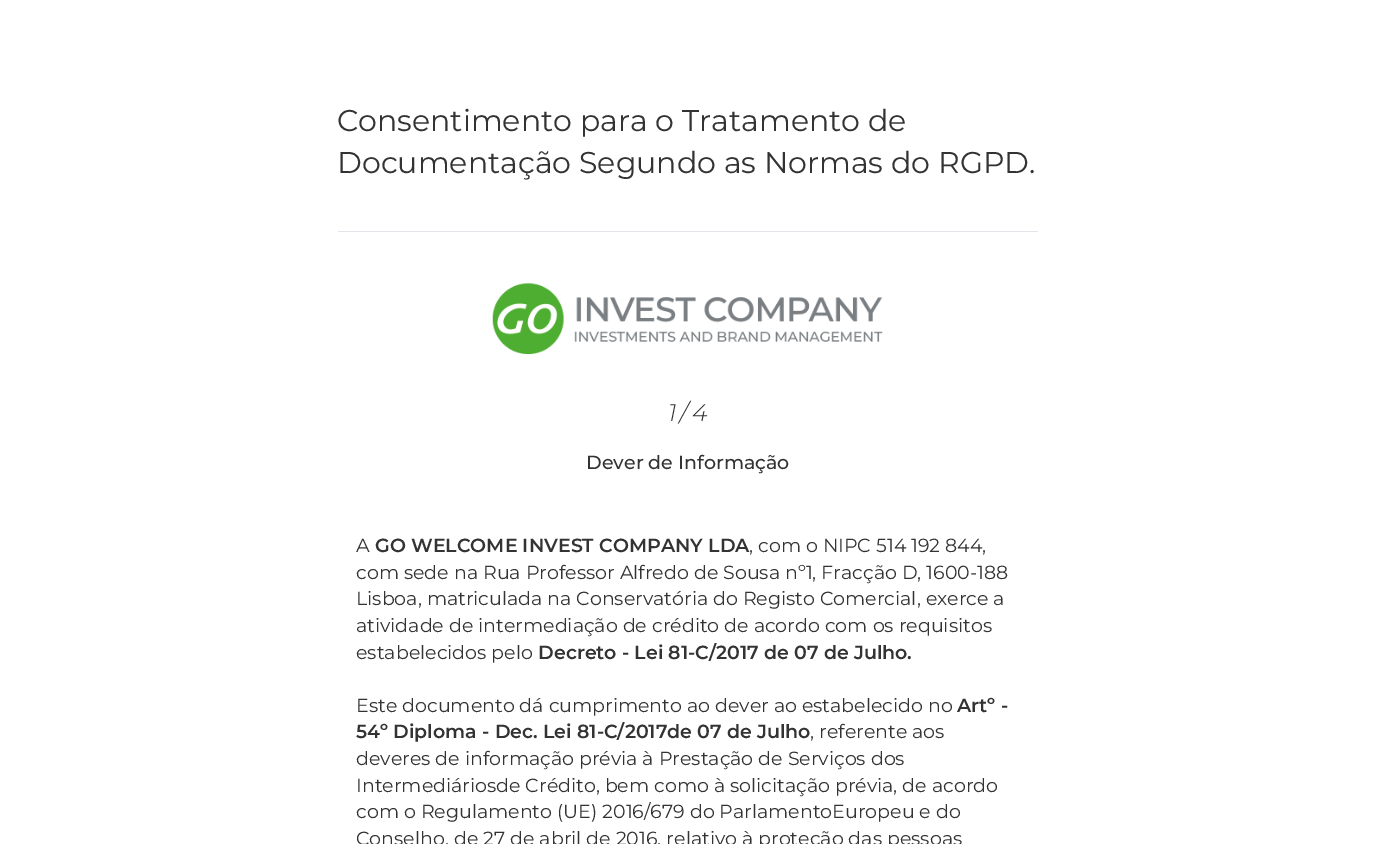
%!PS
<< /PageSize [1375 844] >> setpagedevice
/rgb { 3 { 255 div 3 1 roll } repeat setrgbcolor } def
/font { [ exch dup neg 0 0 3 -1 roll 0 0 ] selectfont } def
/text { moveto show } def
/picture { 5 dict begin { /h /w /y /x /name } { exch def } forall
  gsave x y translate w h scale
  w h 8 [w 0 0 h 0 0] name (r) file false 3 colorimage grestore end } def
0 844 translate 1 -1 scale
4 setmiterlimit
255 255 255 rgb
0 0 1375 844 rectfill
226 229 234 rgb
338 231 700 1 rectfill
(img_01.rgb) 492 282 391 72 picture
/Montserrat-Regular 30 font
51 51 51 rgb
(Consentimento para o Tratamento de) 337 131 text
(Documentação Segundo as Normas do RGPD.) 337 173 text
/Montserrat-LightItalic 24 font
(1) 668 421 text
(/) 680 421 text
(4) 692 421 text
/Montserrat-Medium 19 font
(Dever de Informação) 586 469 text
/Montserrat-Regular 19 font
(A) 356 552 text
/Montserrat-SemiBold 19 font
(GO WELCOME INVEST COMPANY LDA) 375 552 text
/Montserrat-Regular 19 font
(, com o NIPC 514 192 844,) 749 552 text
(com sede na Rua Professor Alfredo de Sousa nº1, Fracção D, 1600-188) 356 579 text
(Lisboa, matriculada na Conservatória do Registo Comercial, exerce a) 356 605 text
(atividade de intermediação de crédito de acordo com os requisitos) 356 632 text
(estabelecidos pelo) 356 659 text
/Montserrat-SemiBold 19 font
(Decreto - Lei 81-C/2017 de 07 de Julho.) 538 659 text
/Montserrat-Regular 19 font
(Este documento dá cumprimento ao dever ao estabelecido no) 356 712 text
/Montserrat-SemiBold 19 font
(Artº -) 957 712 text
(54º Diploma - Dec. Lei 81-C/2017de 07 de Julho) 356 738 text
/Montserrat-Regular 19 font
(, referente aos) 810 738 text
(deveres de informação prévia à Prestação de Serviços dos) 356 765 text
(Intermediáriosde Crédito, bem como à solicitação prévia, de acordo) 356 792 text
(com o Regulamento \(UE\) 2016/679 do ParlamentoEuropeu e do) 356 818 text
(Conselho, de 27 de abril de 2016, relativo à proteção das pessoas) 356 845 text
showpage
